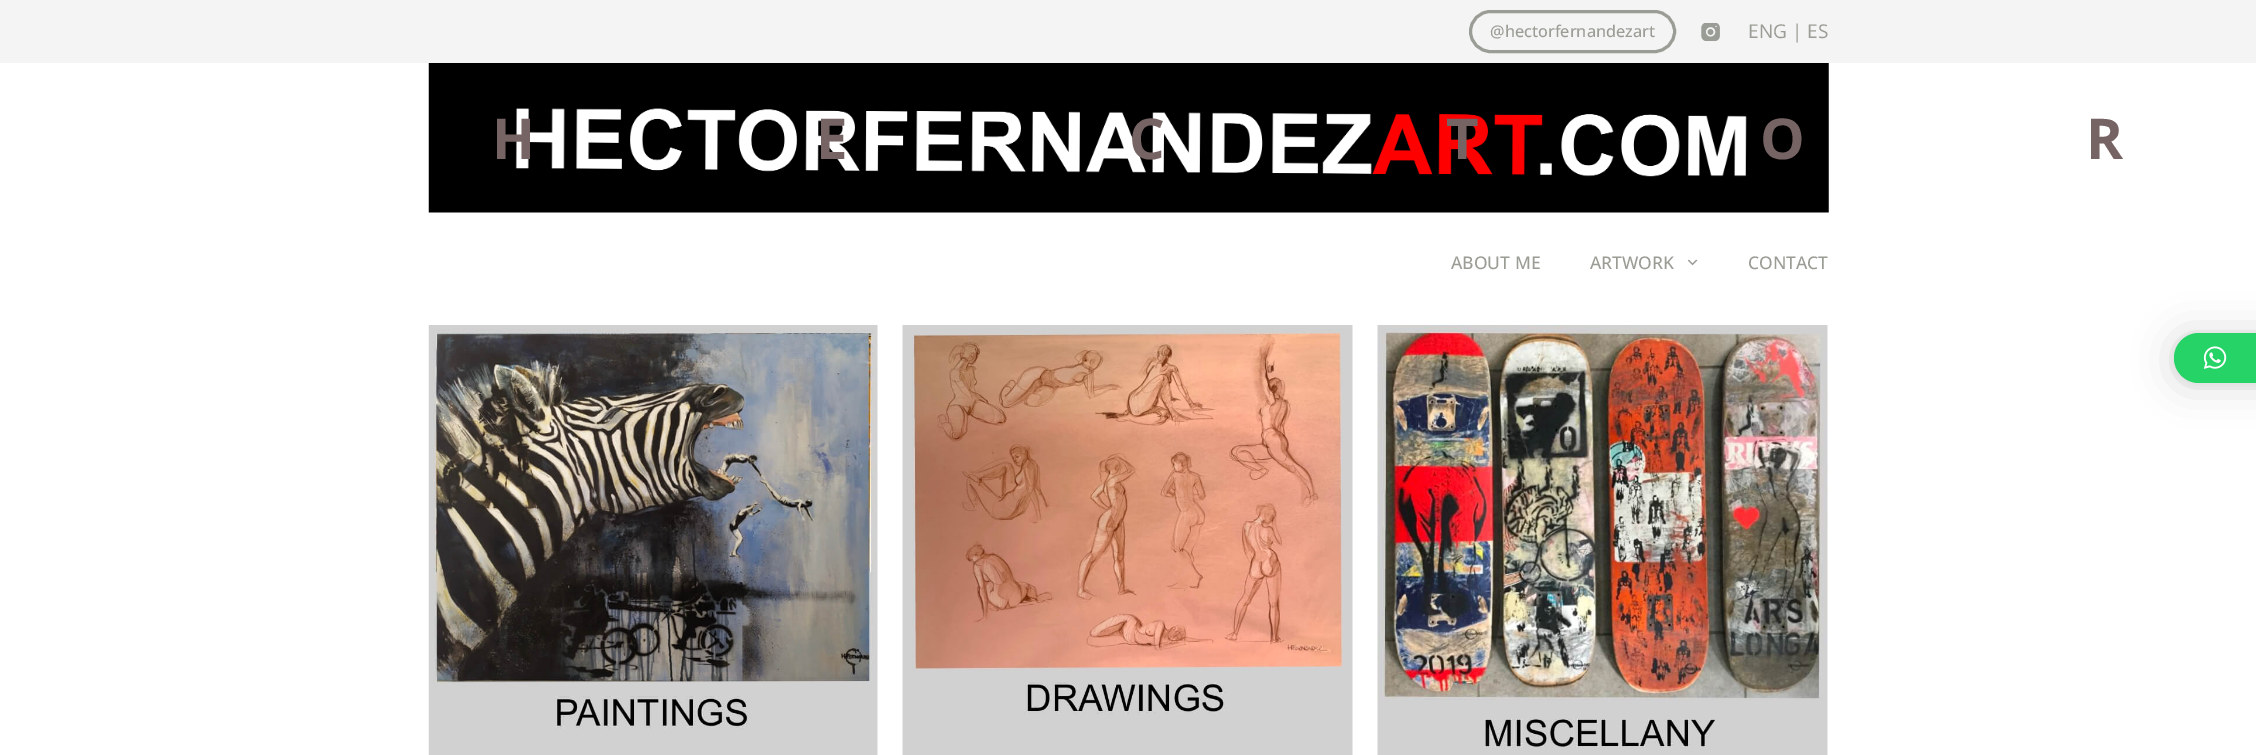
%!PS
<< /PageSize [2256 755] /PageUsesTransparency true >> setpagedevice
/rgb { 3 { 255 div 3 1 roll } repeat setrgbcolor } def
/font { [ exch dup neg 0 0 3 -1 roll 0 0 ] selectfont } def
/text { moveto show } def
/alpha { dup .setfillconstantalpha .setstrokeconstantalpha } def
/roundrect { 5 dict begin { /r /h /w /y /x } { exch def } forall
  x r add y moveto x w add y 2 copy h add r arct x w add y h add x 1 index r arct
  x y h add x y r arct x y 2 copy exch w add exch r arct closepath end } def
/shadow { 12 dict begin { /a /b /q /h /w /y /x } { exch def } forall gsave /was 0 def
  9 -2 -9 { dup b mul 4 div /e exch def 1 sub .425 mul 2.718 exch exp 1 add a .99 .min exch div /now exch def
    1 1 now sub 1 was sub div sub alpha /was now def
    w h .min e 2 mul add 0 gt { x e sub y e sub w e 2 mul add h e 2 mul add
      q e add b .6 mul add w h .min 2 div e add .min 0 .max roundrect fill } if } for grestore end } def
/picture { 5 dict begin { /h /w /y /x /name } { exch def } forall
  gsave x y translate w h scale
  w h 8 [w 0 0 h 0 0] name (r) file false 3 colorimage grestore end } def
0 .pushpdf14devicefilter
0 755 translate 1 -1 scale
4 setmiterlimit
255 255 255 rgb
0 0 2256 755 rectfill
244 244 244 rgb
0 0 2256 63 rectfill
154 157 149 rgb
3 setlinewidth
1470.5 11.5 204 40 20 roundrect stroke
(img_01.rgb) 1701 23 19 18 picture
(img_02.rgb) 428 63 1401 150 picture
(img_03.rgb) 1688 259 10 7 picture
(img_04.rgb) 428 325 450 430 picture
(img_05.rgb) 902 325 451 430 picture
(img_06.rgb) 1377 325 451 430 picture
0 0 0 rgb
2174 335 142 50 25 20 0.16 shadow
2174 334 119 50 25 4 0.06 shadow
37 211 102 rgb
2174 333 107 50 25 roundrect fill
(img_07.rgb) 2203 346 24 23 picture
/OpenSans-Medium 16.25 font
154 157 149 rgb
(@hectorfernandezart) 1490 37 text
/OpenSans-Regular 19 font
(ENG |) 1748 38 text
(ES) 1807 38 text
/OpenSans-Bold 56.25 font
118 99 99 rgb
492 159 moveto 281.25 0 (HECTOR) ashow
/OpenSans-Medium 17.5 font
154 157 149 rgb
(ABOUT ME) 1451 269 text
(ARTWORK) 1590 269 text
(CONTACT) 1748 269 text
.poppdf14devicefilter showpage
